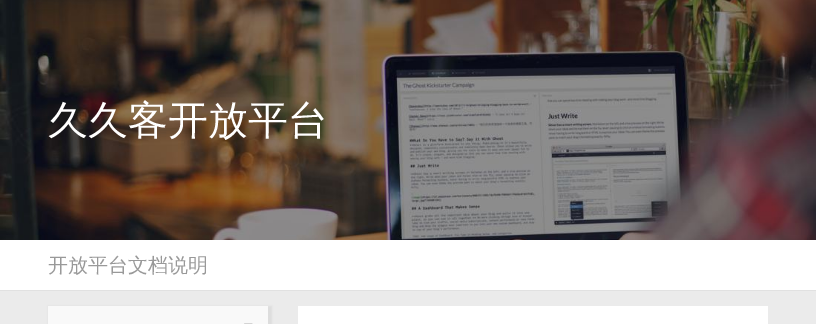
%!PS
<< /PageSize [816 324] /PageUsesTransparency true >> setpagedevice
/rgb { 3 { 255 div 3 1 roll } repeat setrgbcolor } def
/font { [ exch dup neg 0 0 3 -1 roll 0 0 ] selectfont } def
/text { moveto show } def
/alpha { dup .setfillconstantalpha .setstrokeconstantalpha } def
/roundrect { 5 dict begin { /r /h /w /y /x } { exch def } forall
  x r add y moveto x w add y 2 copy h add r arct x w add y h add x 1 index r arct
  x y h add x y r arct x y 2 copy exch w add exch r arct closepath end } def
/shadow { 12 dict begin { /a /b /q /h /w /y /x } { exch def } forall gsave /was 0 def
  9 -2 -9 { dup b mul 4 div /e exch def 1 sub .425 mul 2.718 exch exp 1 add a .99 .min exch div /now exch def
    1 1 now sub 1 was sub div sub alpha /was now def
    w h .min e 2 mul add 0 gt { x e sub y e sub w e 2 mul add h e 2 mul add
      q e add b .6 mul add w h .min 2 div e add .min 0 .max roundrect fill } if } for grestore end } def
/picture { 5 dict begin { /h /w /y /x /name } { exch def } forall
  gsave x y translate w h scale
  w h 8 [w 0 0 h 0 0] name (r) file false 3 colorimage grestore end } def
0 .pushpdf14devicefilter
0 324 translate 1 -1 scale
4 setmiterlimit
235 235 235 rgb
0 0 816 324 rectfill
(img_01.rgb) 0 0 816 240 picture
255 255 255 rgb
0 240 816 50 rectfill
225 225 225 rgb
0 290 816 1 rectfill
0 0 0 rgb
48 306 224 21 0 1 0.05 shadow
249 249 249 rgb
48 306 220 18 rectfill
(img_02.rgb) 244 323 9 1 picture
255 255 255 rgb
298 306 470 18 rectfill
/WenQuanYiZenHei-Medium 40 font
(久久客开放平台) 48 134 text
/WenQuanYiZenHei-Medium 20 font
153 153 153 rgb
(开放平台文档说明) 48 272 text
.poppdf14devicefilter showpage
